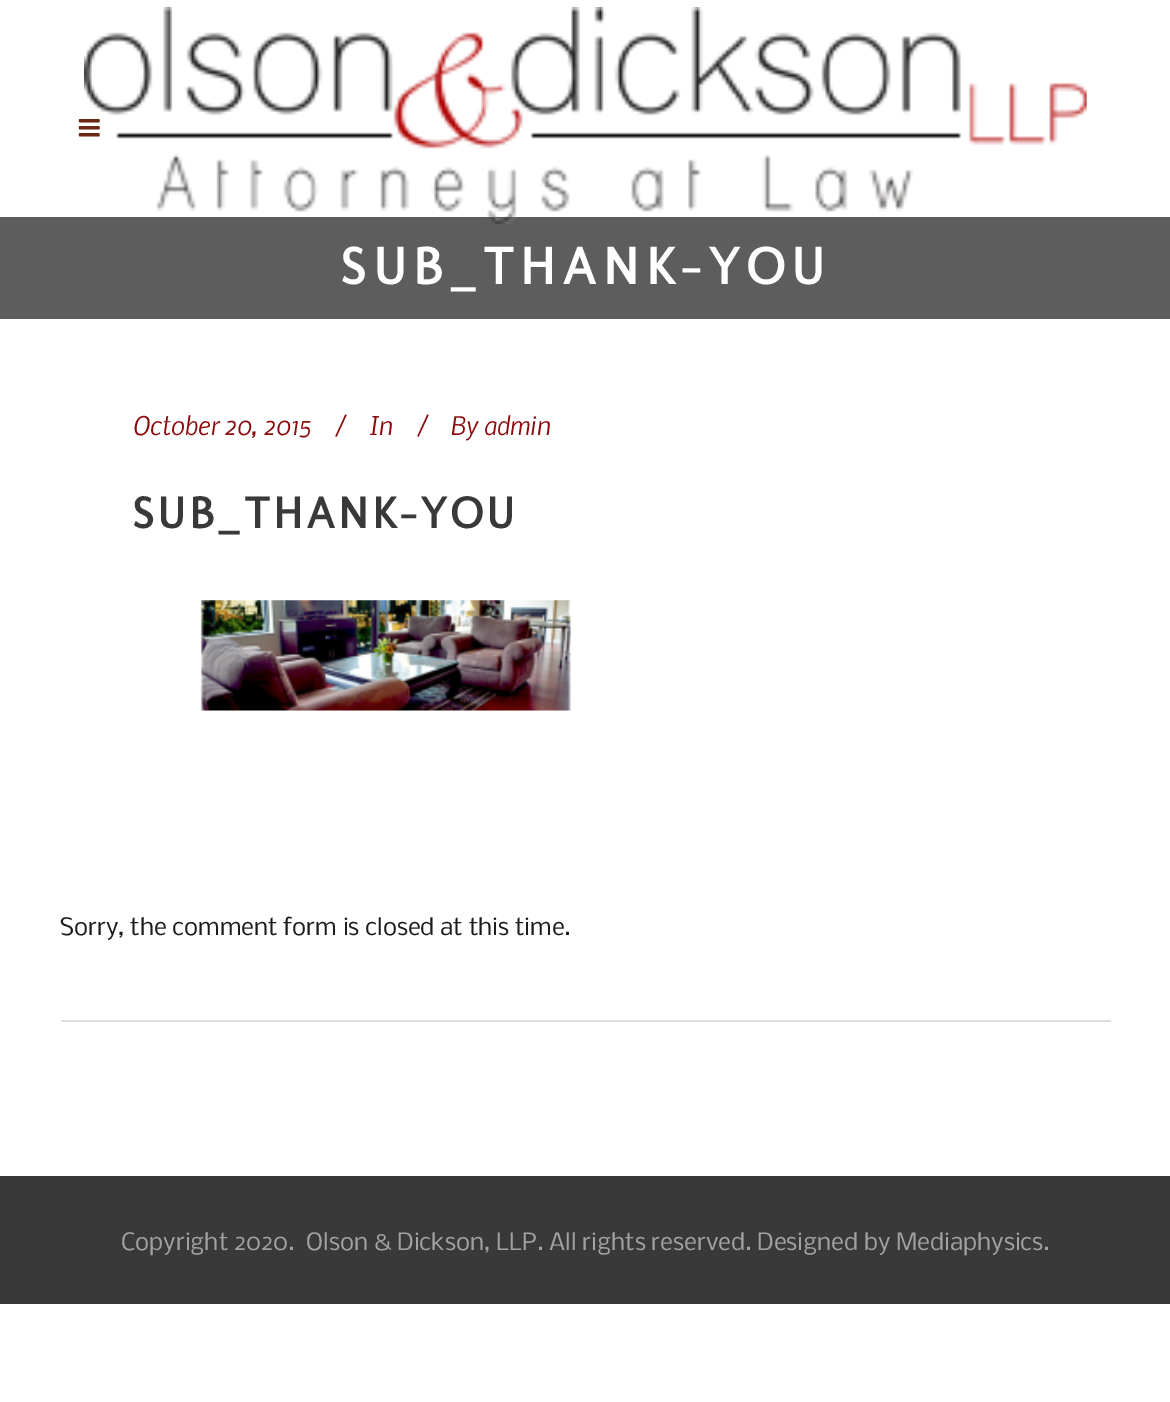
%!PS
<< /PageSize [1170 1402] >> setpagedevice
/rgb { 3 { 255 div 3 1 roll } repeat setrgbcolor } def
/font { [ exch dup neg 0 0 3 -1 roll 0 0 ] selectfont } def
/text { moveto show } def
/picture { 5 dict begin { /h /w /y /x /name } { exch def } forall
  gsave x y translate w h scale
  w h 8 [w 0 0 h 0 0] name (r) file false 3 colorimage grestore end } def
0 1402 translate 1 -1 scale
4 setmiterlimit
255 255 255 rgb
0 0 1170 1402 rectfill
93 93 93 rgb
0 217 1170 102 rectfill
(img_01.rgb) 84 7 1003 217 picture
(img_02.rgb) 78 119 22 18 picture
(img_03.rgb) 200 600 371 111 picture
221 221 221 rgb
61 1020 1050 2 rectfill
57 57 57 rgb
0 1176 1170 128 rectfill
/Molengo-Bold 52.5 font
255 255 255 rgb
340 284 moveto 7 0 (SUB_THANK-YOU) ashow
/Nobile-Italic 24.5 font
139 12 13 rgb
(October 20, 2015) 132 435 text
(/) 334 435 text
(In) 368 435 text
(/) 416 435 text
(By admin) 450 435 text
/Molengo-Bold 44.6 font
57 57 57 rgb
132 528 moveto 3.5 0 (SUB_THANK-YOU) ashow
/Nobile-Regular 22.75 font
28 28 28 rgb
(Sorry, the comment form is closed at this time.) 60 935 text
162 162 162 rgb
(Copyright 2020.  Olson & Dickson, LLP. All rights reserved. Designed by Mediaphysics.) 121 1250 text
showpage
